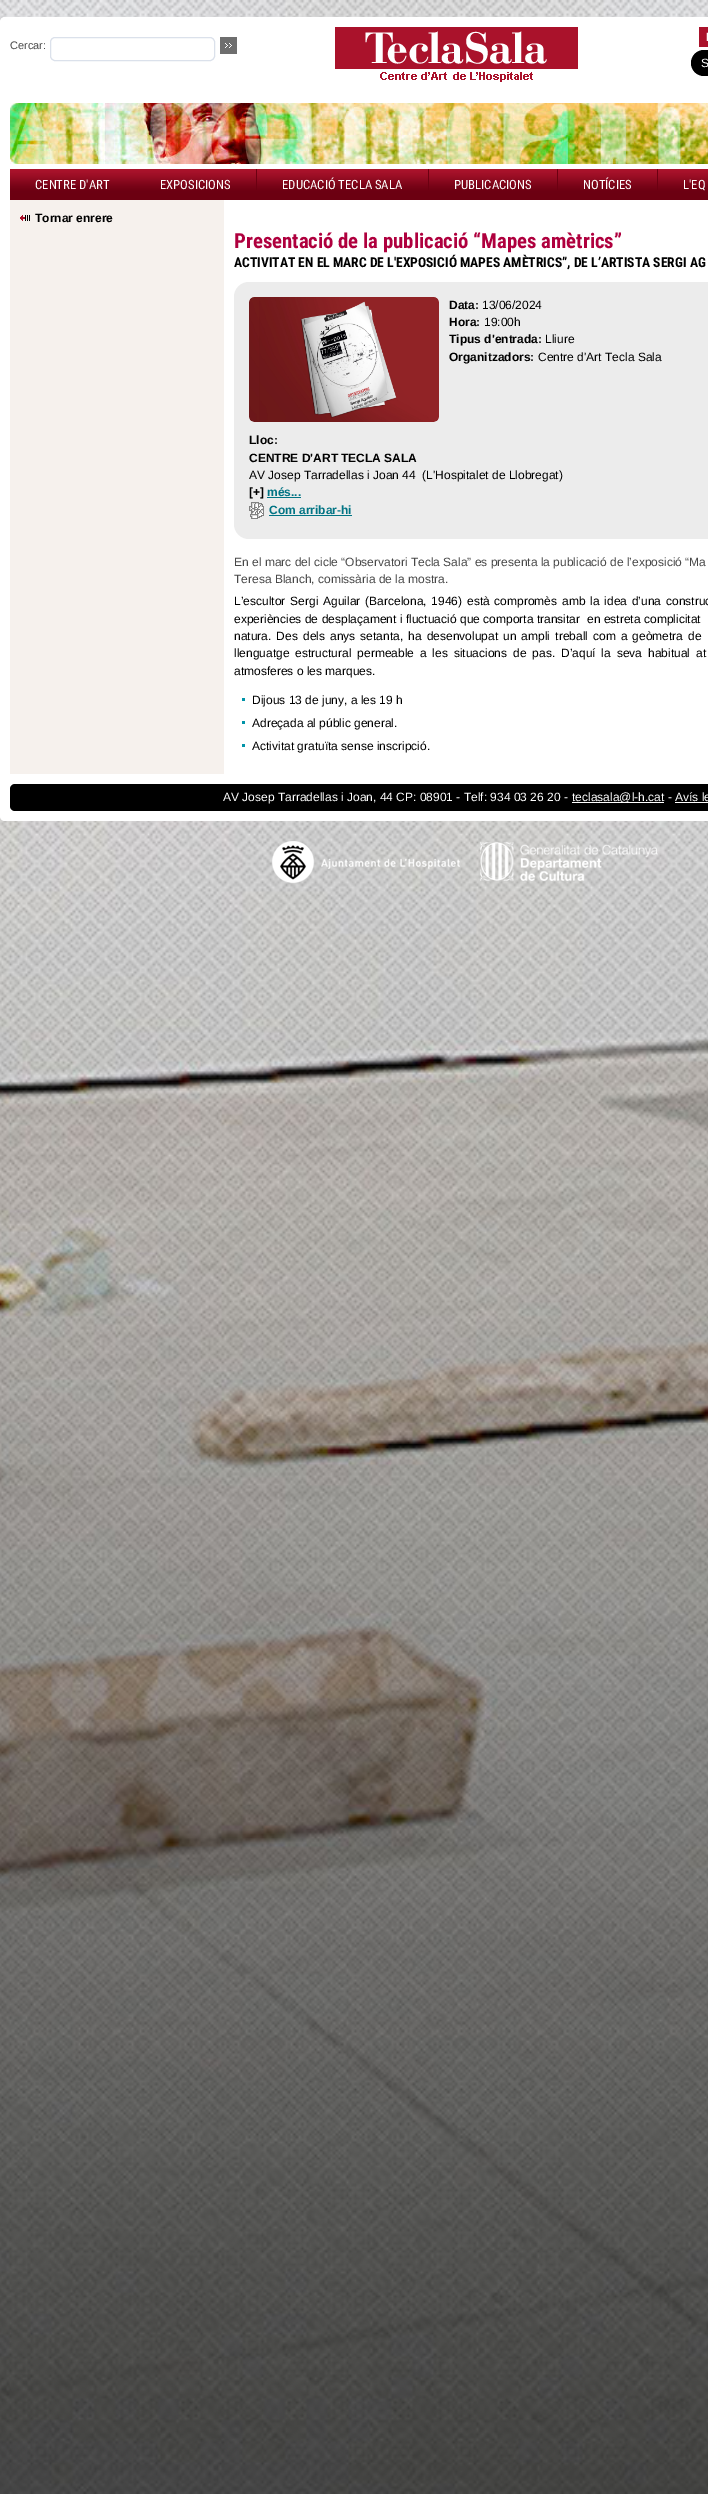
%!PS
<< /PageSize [708 2494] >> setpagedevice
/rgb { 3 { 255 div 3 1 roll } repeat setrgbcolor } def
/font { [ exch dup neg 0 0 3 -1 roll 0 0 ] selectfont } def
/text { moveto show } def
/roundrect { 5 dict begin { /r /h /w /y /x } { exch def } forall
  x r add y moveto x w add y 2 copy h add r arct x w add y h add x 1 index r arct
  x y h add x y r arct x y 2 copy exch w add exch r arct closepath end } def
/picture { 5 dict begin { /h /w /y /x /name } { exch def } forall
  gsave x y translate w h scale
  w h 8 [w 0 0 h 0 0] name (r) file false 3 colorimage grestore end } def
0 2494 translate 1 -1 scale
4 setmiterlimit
255 255 255 rgb
0 0 708 2494 rectfill
(img_01.rgb) 0 0 708 2494 picture
5 17 moveto 703 0 rlineto 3 0 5 2 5 5 rcurveto 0 76 rlineto -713 0 rlineto 0 -76 rlineto 0 -3 2 -5 5 -5 rcurveto closepath fill
219 225 235 rgb
50.5 37.5 164 23 4.5 roundrect stroke
(img_02.rgb) 220 37 17 17 picture
(img_03.rgb) 335 27 243 55 picture
170 18 43 rgb
699 27 9 20 rectfill
0 0 0 rgb
691 50 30 26 13 roundrect fill
255 255 255 rgb
0 98 708 676 rectfill
(img_04.rgb) 10 103 698 61 picture
(img_05.rgb) 10 169 698 31 picture
108 0 17 rgb
256 169 1 21 rectfill
428 169 1 21 rectfill
557 169 1 21 rectfill
657 169 1 21 rectfill
246 241 237 rgb
10 200 214 574 rectfill
(img_06.rgb) 20 215 10 6 picture
236 236 236 rgb
234 282 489 257 15 roundrect fill
(img_07.rgb) 249 297 190 125 picture
1 116 132 rgb
267 497 34 1 rectfill
(img_08.rgb) 249 502 15 17 picture
269 515 83 1 rectfill
0 147 168 rgb
242 698 3 3 rectfill
242 721 3 3 rectfill
242 744 3 3 rectfill
255 255 255 rgb
0 774 moveto 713 0 rlineto 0 42 rlineto 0 3 -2 5 -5 5 rcurveto -703 0 rlineto -3 0 -5 -2 -5 -5 rcurveto closepath fill
0 0 0 rgb
10 784 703 27 5 roundrect fill
255 255 255 rgb
572 802 92 1 rectfill
675 802 33 1 rectfill
(img_09.rgb) 272 841 188 42 picture
(img_10.rgb) 480 842 178 39 picture
/LiberationSans-Regular 11 font
72 72 72 rgb
(Cercar:) 10 49 text
/LiberationSans-Bold 12 font
255 255 255 rgb
(I) 706 41 text
/LiberationSans-Regular 12 font
(S) 701 67 text
/RobotoCondensed-Regular 12.75 font
(CENTRE D'ART) 35 189 text
(EXPOSICIONS) 160 189 text
(EDUCACIÓ TECLA SALA) 282 189 text
(PUBLICACIONS) 454 189 text
(NOTÍCIES) 583 189 text
(L'EQ) 683 189 text
/LiberationSans-Bold 12 font
0 0 0 rgb
(Tornar enrere) 35 222 text
/RobotoCondensed-Bold 20.75 font
175 0 62 rgb
(Presentació de la publicació “Mapes amètrics”) 234 248 text
/RobotoCondensed-Bold 13.6 font
0 0 0 rgb
(ACTIVITAT EN EL MARC DE L'EXPOSICIÓ MAPES AMÈTRICS”, DE L’ARTISTA SERGI AG) 234 267 text
/LiberationSans-Bold 12 font
(Data:) 449 309 text
/LiberationSans-Regular 12 font
(13/06/2024) 482 309 text
/LiberationSans-Bold 12 font
(Hora:) 449 326 text
/LiberationSans-Regular 12 font
(19:00h) 484 326 text
/LiberationSans-Bold 12 font
(Tipus d'entrada:) 449 343 text
/LiberationSans-Regular 12 font
(Lliure) 545 343 text
/LiberationSans-Bold 12 font
(Organitzadors:) 449 361 text
/LiberationSans-Regular 12 font
(Centre d'Art Tecla Sala) 538 361 text
/LiberationSans-Bold 12 font
(Lloc:) 249 444 text
(CENTRE D'ART TECLA SALA) 249 462 text
/LiberationSans-Regular 12 font
(AV Josep Tarradellas i Joan 44  \(L'Hospitalet de Llobregat\)) 249 479 text
/LiberationSans-Bold 12 font
([+]) 249 496 text
1 116 132 rgb
(més...) 267 496 text
(Com arribar-hi) 269 514 text
/LiberationSans-Regular 12 font
72 72 72 rgb
(En el marc del cicle “Observatori Tecla Sala” es presenta la publicació de l’exposició “Ma) 234 566 text
(Teresa Blanch, comissària de la mostra.) 234 583 text
0 0 0 rgb
234 605 moveto 1.5 0 32 (L’escultor Sergi Aguilar \(Barcelona, 1946\) està compromès amb la idea d’una construc) widthshow
234 623 moveto 0.1 0 32 (experiències de desplaçament i fluctuació que comporta transitar  en estreta complicitat) widthshow
234 640 moveto 1.75 0 32 (natura. Des dels anys setanta, ha desenvolupat un ampli treball com a geòmetra de) widthshow
234 657 moveto 2.6 0 32 (llenguatge estructural permeable a les situacions de pas. D’aquí la seva habitual at) widthshow
(atmosferes o les marques.) 234 675 text
(Dijous 13 de juny, a les 19 h) 252 704 text
(Adreçada al públic general.) 252 727 text
(Activitat gratuïta sense inscripció.) 252 750 text
255 255 255 rgb
(AV Josep Tarradellas i Joan, 44 CP: 08901 - Telf: 934 03 26 20 -) 223 801 text
(teclasala@l-h.cat - Avís le) 572 801 text
showpage
